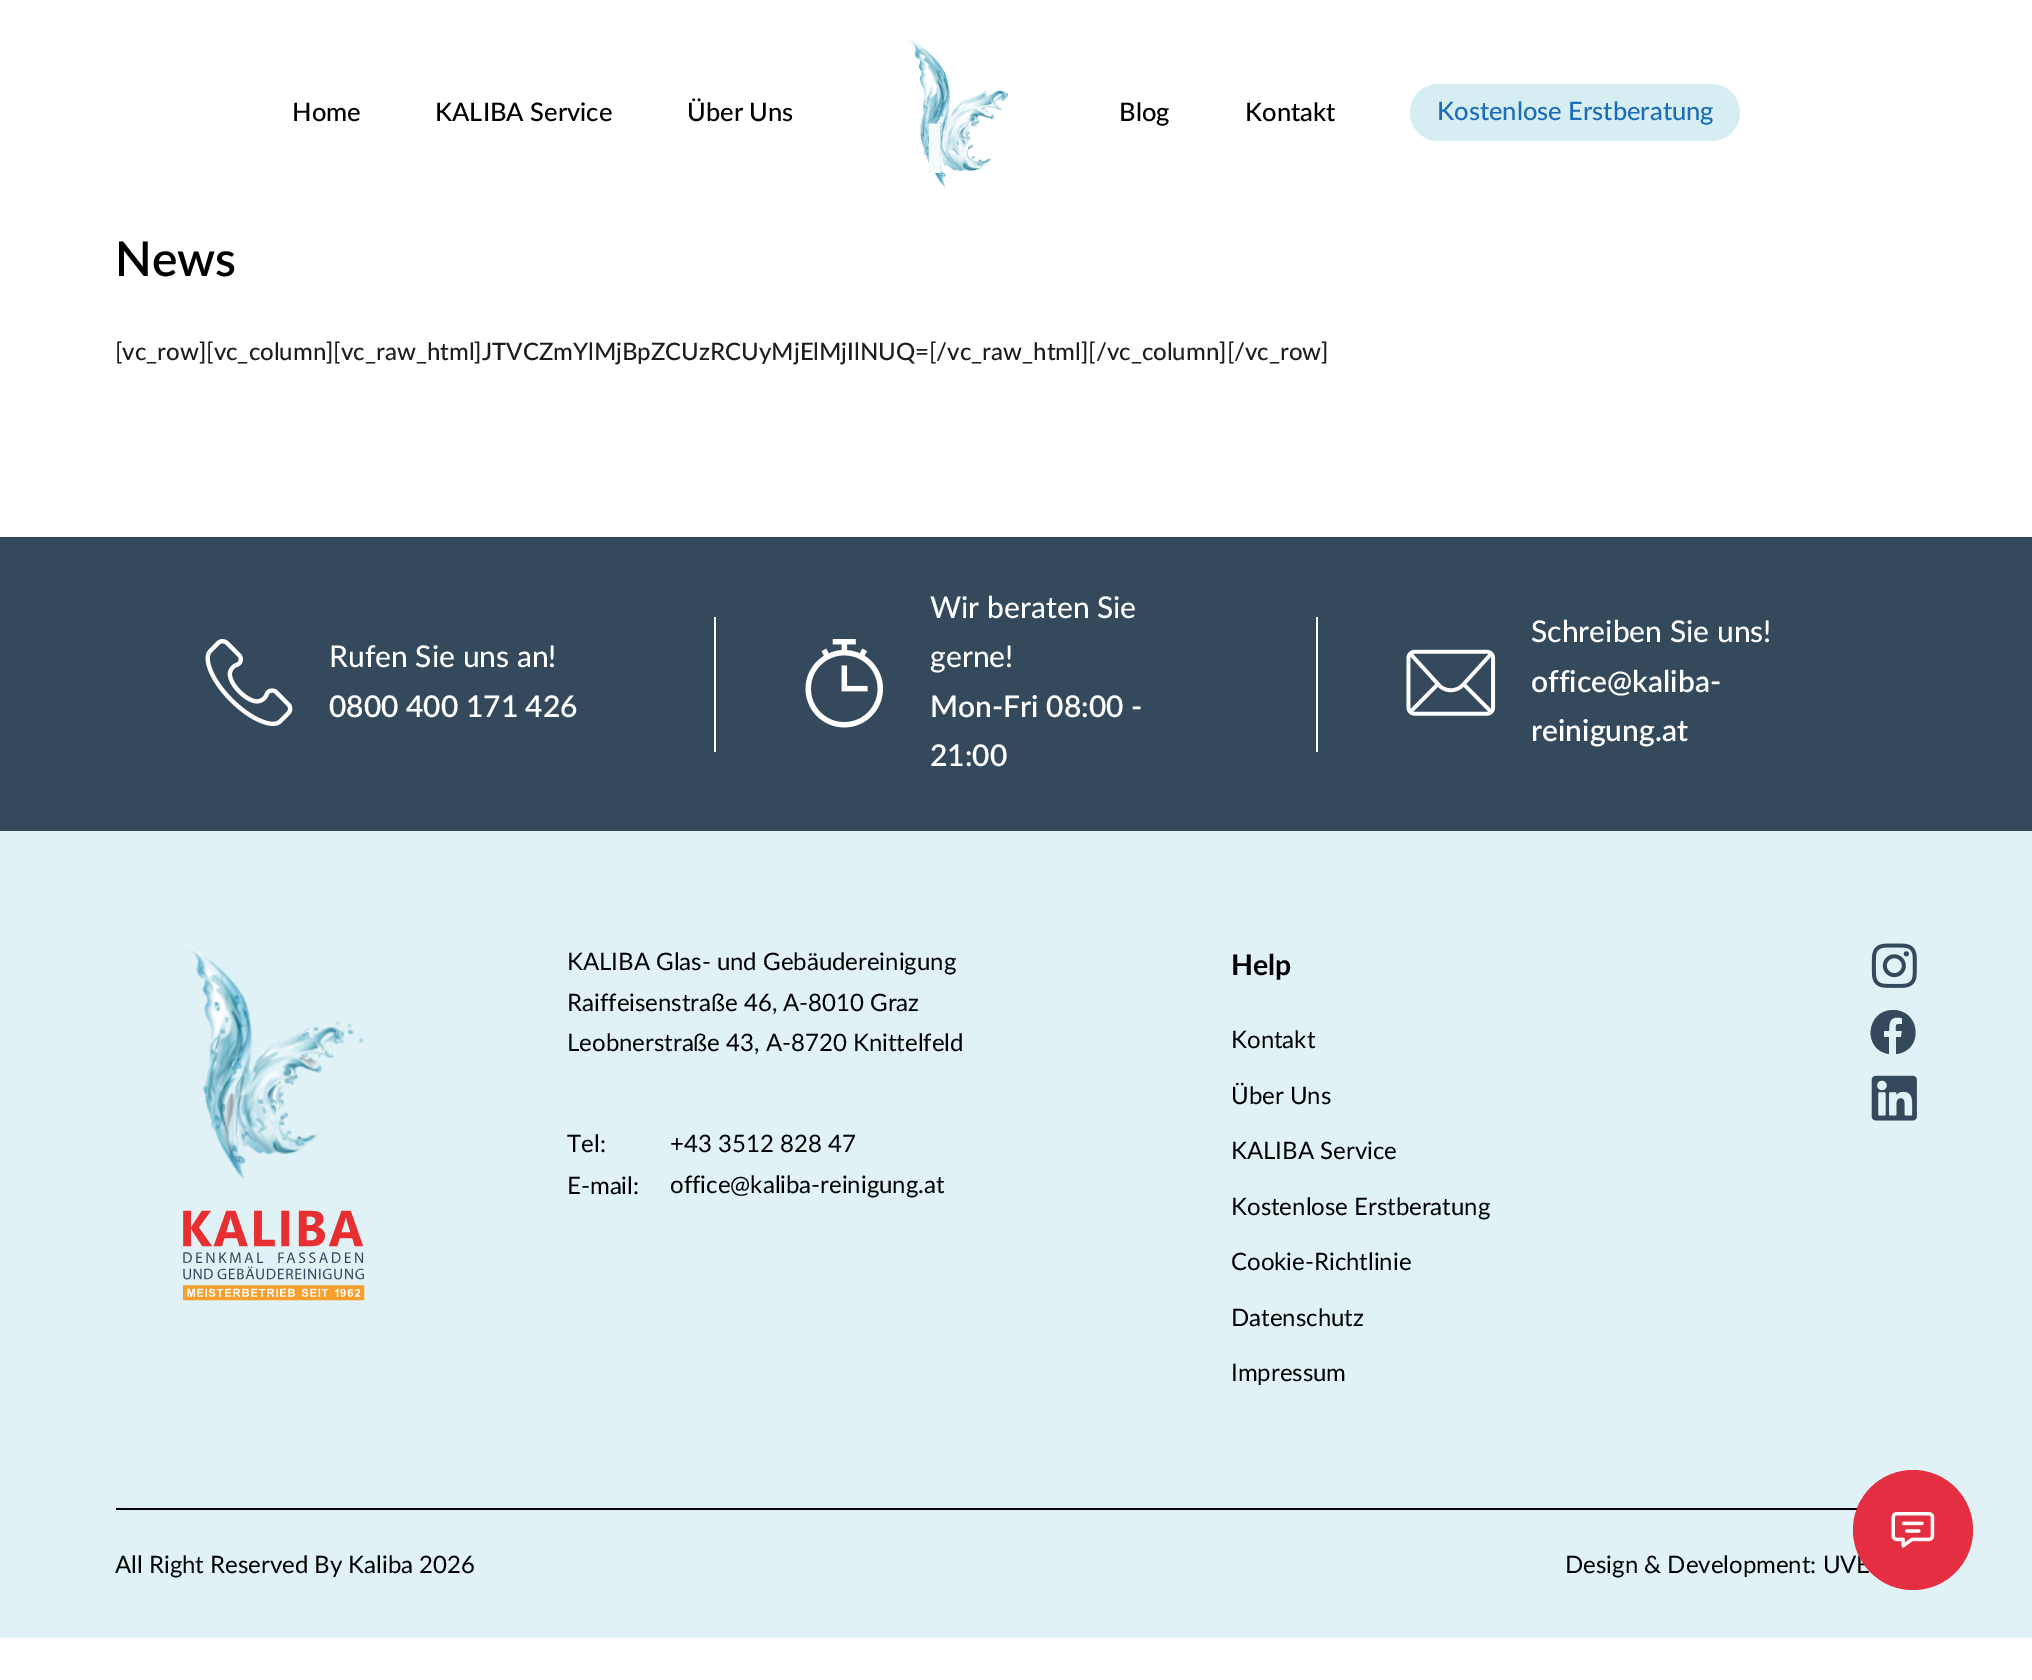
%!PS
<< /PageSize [2032 1680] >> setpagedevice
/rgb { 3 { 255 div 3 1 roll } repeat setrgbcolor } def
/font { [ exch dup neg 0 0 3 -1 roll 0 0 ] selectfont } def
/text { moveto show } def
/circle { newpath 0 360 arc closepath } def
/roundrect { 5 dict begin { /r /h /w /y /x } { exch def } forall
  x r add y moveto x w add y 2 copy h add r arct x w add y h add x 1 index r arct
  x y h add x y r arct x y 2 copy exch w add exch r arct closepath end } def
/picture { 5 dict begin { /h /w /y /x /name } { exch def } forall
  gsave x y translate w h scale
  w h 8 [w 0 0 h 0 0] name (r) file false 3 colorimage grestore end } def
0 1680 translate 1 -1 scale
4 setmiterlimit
255 255 255 rgb
0 0 2032 1680 rectfill
214 238 242 rgb
1410 84 330 57 28.5 roundrect fill
(img_01.rgb) 908 38 100 150 picture
52 73 92 rgb
0 537 2032 294 rectfill
(img_02.rgb) 205 639 88 87 picture
255 255 255 rgb
714 617 2 135 rectfill
(img_03.rgb) 805 639 79 89 picture
1316 617 2 135 rectfill
(img_04.rgb) 1406 649 90 67 picture
224 242 246 rgb
0 831 2032 807 rectfill
(img_05.rgb) 183 944 180 235 picture
(img_06.rgb) 183 1210 182 91 picture
(img_07.rgb) 1871 943 46 45 picture
53 73 93 rgb
1893 1010 moveto -27 0 -31 40 -4 44 rcurveto 0 -17 rlineto -5 0 rlineto 0 -6 rlineto 5 0 rlineto 0 -11 2 -15 13 -13 rcurveto 0 6 rlineto -7 0 -6 0 -6 7 rcurveto 6 0 rlineto -1 6 rlineto -5 0 rlineto 0 17 rlineto 28 -3 25 -44 -3 -44 rcurveto closepath fill
(img_08.rgb) 1871 1075 46 46 picture
0 0 0 rgb
116 1508 1742 2 rectfill
/Lato-Medium 25.5 font
(Home) 292 121 text
(KALIBA Service) 435 121 text
(Über Uns) 687 121 text
(Blog) 1119 121 text
(Kontakt) 1245 121 text
27 108 187 rgb
(Kostenlose Erstberatung) 1437 120 text
/Lato-Black 68 font
245 250 251 rgb
(I) 924 173 text
/Lato-SemiBold 48 font
0 0 0 rgb
(News) 115 276 text
/Lato-Medium 24 font
30 30 30 rgb
([vc_row][vc_column][vc_raw_html]JTVCZmYlMjBpZCUzRCUyMjElMjIlNUQ=[/vc_raw_html][/vc_column][/vc_row]) 115 360 text
/Lato-Medium 30 font
255 255 255 rgb
(Rufen Sie uns an!) 329 667 text
/Lato-SemiBold 30 font
(0800 400 171 426) 329 717 text
/Lato-Medium 30 font
(Wir beraten Sie) 930 618 text
(gerne!) 930 667 text
/Lato-SemiBold 30 font
(Mon-Fri 08:00 -) 930 717 text
(21:00) 930 766 text
/Lato-Medium 30 font
(Schreiben Sie uns!) 1531 642 text
/Lato-SemiBold 30 font
(office@kaliba-) 1531 692 text
(reinigung.at) 1531 741 text
/Lato-Regular 24 font
0 0 0 rgb
(KALIBA Glas- und Gebäudereinigung) 567 970 text
(Raiffeisenstraße 46, A-8010 Graz) 567 1011 text
(Leobnerstraße 43, A-8720 Knittelfeld) 567 1051 text
(Tel:) 567 1152 text
(+43 3512 828 47) 670 1152 text
(E-mail:) 567 1194 text
(office@kaliba-reinigung.at) 670 1193 text
/Lato-Bold 28.5 font
(Help) 1231 975 text
/Lato-Regular 24 font
(Kontakt) 1231 1048 text
(Über Uns) 1231 1104 text
(KALIBA Service) 1231 1159 text
(Kostenlose Erstberatung) 1231 1215 text
(Cookie-Richtlinie) 1231 1270 text
(Datenschutz) 1231 1326 text
(Impressum) 1231 1381 text
(All Right Reserved By Kaliba 2026) 115 1573 text
(Design & Development: UVE) 1565 1573 text
228 47 66 rgb
1913 1530 60 circle fill
(img_09.rgb) 1891 1512 44 36 picture
showpage
